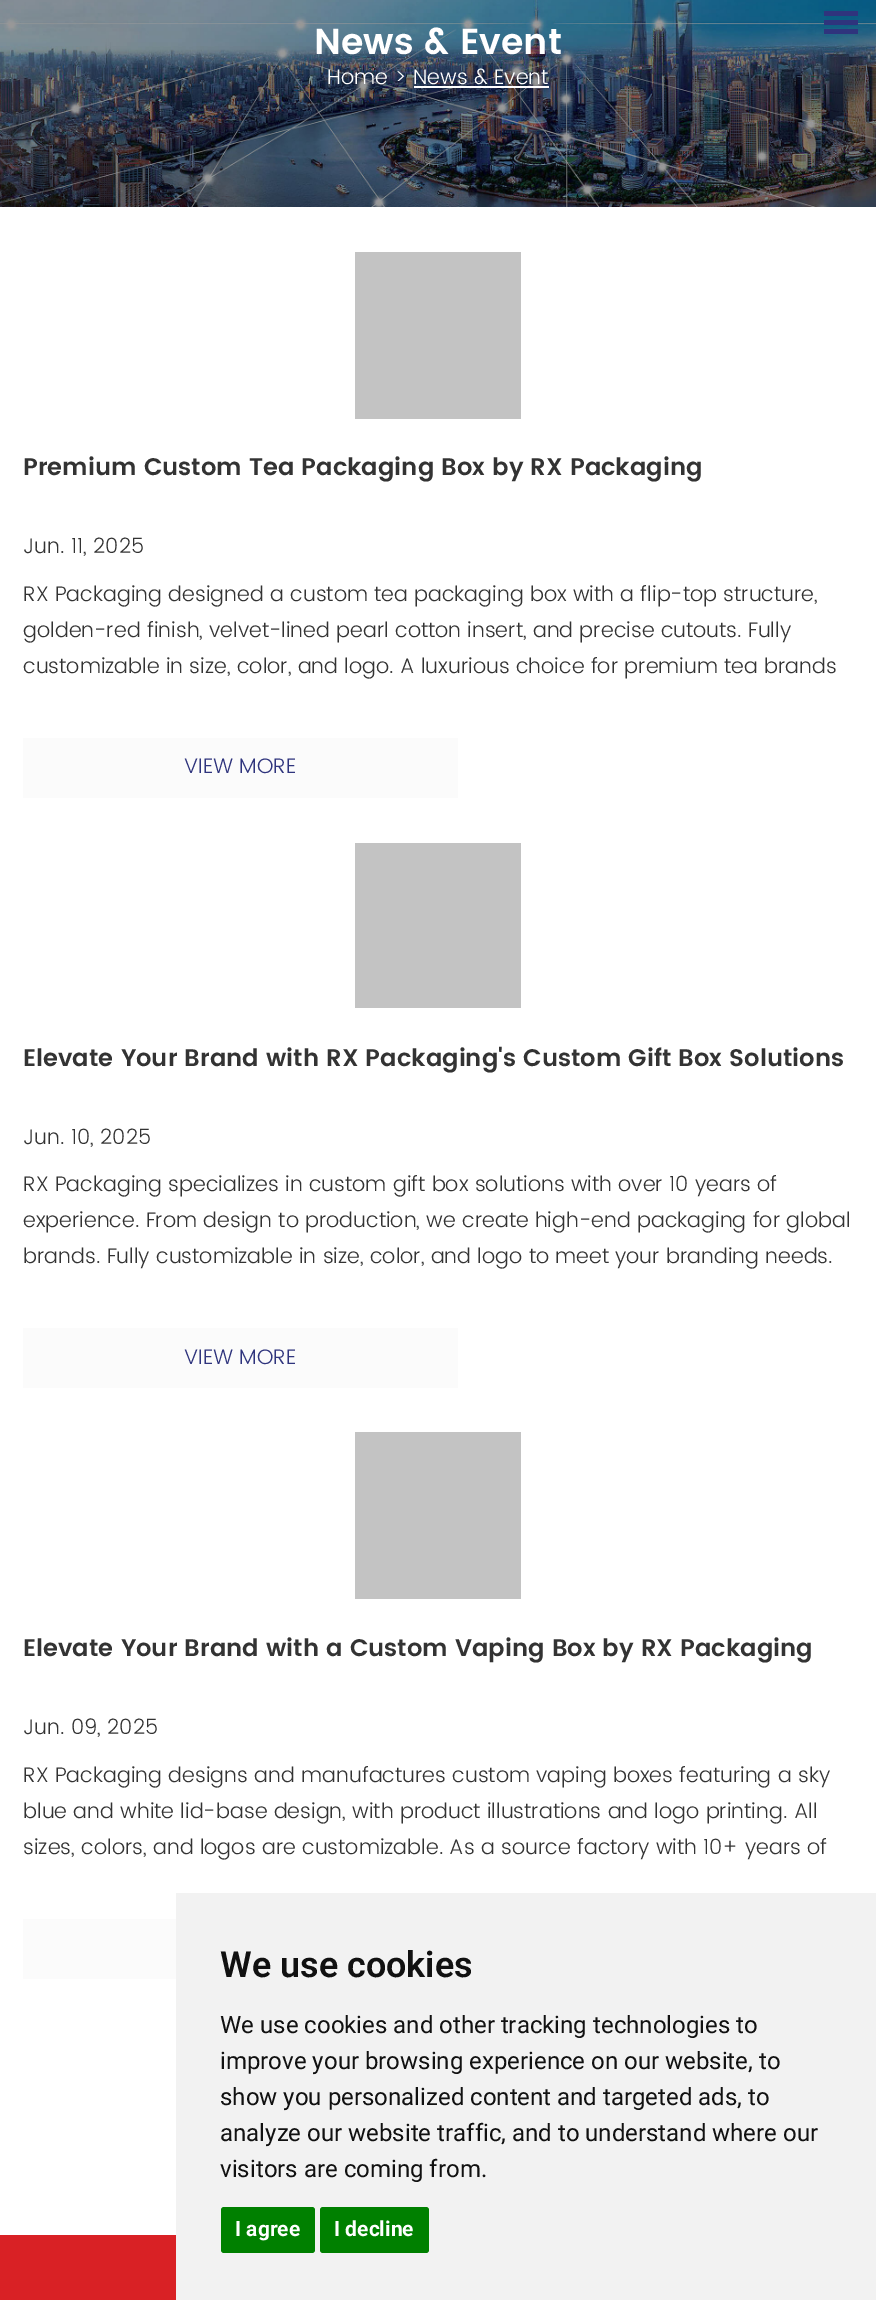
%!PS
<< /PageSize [876 2300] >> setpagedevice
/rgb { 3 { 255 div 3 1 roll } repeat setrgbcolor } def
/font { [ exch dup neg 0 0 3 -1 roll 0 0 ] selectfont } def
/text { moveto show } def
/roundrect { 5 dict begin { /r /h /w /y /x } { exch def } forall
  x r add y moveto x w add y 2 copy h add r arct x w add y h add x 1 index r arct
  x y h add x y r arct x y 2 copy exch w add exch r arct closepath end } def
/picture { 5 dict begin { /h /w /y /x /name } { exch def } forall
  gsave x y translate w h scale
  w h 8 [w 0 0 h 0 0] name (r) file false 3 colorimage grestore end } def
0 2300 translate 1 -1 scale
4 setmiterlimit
255 255 255 rgb
0 0 876 2300 rectfill
(img_01.rgb) 0 0 876 207 picture
47 52 125 rgb
824 11 34 5 rectfill
824 20 34 5 rectfill
824 29 34 5 rectfill
255 255 255 rgb
414 86 135 2 rectfill
195 195 195 rgb
355 252 166 167 rectfill
251 251 251 rgb
23 738 435 60 rectfill
195 195 195 rgb
355 843 166 165 rectfill
251 251 251 rgb
23 1328 435 60 rectfill
195 195 195 rgb
355 1432 166 167 rectfill
251 251 251 rgb
23 1919 153 60 rectfill
242 242 242 rgb
176 1893 700 407 rectfill
0 128 0 rgb
221 2207 94 46 3 roundrect fill
320 2207 109 46 3 roundrect fill
217 33 37 rgb
0 2235 176 65 rectfill
/Poppins-SemiBold 36 font
255 255 255 rgb
(News & Event) 314 54 text
/Poppins-Light 21 font
(Home > News & Event) 327 84 text
/Poppins-SemiBold 24 font
51 51 51 rgb
(Premium Custom Tea Packaging Box by RX Packaging) 23 475 text
/Poppins-Light 21 font
(Jun. 11, 2025) 23 553 text
(RX Packaging designed a custom tea packaging box with a flip-top structure,) 23 601 text
(golden-red finish, velvet-lined pearl cotton insert, and precise cutouts. Fully) 23 637 text
(customizable in size, color, and logo. A luxurious choice for premium tea brands) 23 673 text
47 52 125 rgb
(VIEW MORE) 184 773 text
/Poppins-SemiBold 24 font
51 51 51 rgb
(Elevate Your Brand with RX Packaging's Custom Gift Box Solutions) 23 1066 text
/Poppins-Light 21 font
(Jun. 10, 2025) 23 1144 text
(RX Packaging specializes in custom gift box solutions with over 10 years of) 23 1191 text
(experience. From design to production, we create high-end packaging for global) 23 1227 text
(brands. Fully customizable in size, color, and logo to meet your branding needs.) 23 1263 text
47 52 125 rgb
(VIEW MORE) 184 1364 text
/Poppins-SemiBold 24 font
51 51 51 rgb
(Elevate Your Brand with a Custom Vaping Box by RX Packaging) 23 1656 text
/Poppins-Light 21 font
(Jun. 09, 2025) 23 1734 text
(RX Packaging designs and manufactures custom vaping boxes featuring a sky) 23 1782 text
(blue and white lid-base design, with product illustrations and logo printing. All) 23 1818 text
(sizes, colors, and logos are customizable. As a source factory with 10+ years of) 23 1854 text
/Roboto-SemiBold 36 font
17 17 17 rgb
(We use cookies) 220 1977 text
/Roboto-Regular 24 font
(We use cookies and other tracking technologies to) 220 2033 text
(improve your browsing experience on our website, to) 220 2069 text
(show you personalized content and targeted ads, to) 220 2105 text
(analyze our website traffic, and to understand where our) 220 2141 text
(visitors are coming from.) 220 2177 text
/Roboto-Bold 21 font
255 255 255 rgb
(I agree) 235 2236 text
(I decline) 334 2236 text
showpage
